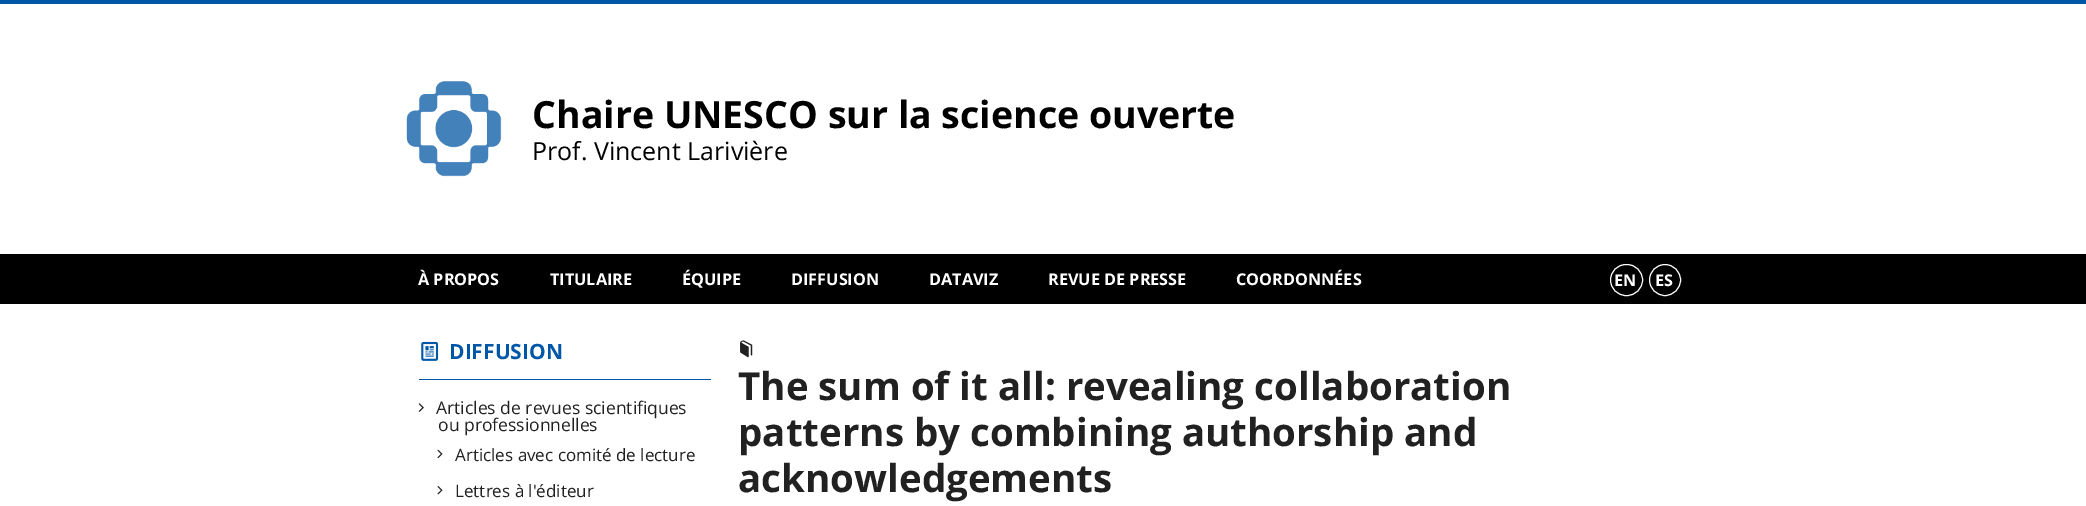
%!PS
<< /PageSize [2086 506] >> setpagedevice
/rgb { 3 { 255 div 3 1 roll } repeat setrgbcolor } def
/font { [ exch dup neg 0 0 3 -1 roll 0 0 ] selectfont } def
/text { moveto show } def
/circle { newpath 0 360 arc closepath } def
/roundrect { 5 dict begin { /r /h /w /y /x } { exch def } forall
  x r add y moveto x w add y 2 copy h add r arct x w add y h add x 1 index r arct
  x y h add x y r arct x y 2 copy exch w add exch r arct closepath end } def
/picture { 5 dict begin { /h /w /y /x /name } { exch def } forall
  gsave x y translate w h scale
  w h 8 [w 0 0 h 0 0] name (r) file false 3 colorimage grestore end } def
0 506 translate 1 -1 scale
4 setmiterlimit
255 255 255 rgb
0 0 2086 506 rectfill
0 86 167 rgb
0 0 2086 4 rectfill
(img_01.rgb) 406 81 96 96 picture
0 0 0 rgb
0 254 2086 50 rectfill
255 255 255 rgb
1610.5 264.5 32 31 15.5 roundrect stroke
1665 280 15.5 circle stroke
0 86 167 rgb
419 379 292 1 rectfill
(img_02.rgb) 421 341 18 20 picture
(img_03.rgb) 418 403 6 9 picture
(img_04.rgb) 437 449 6 10 picture
(img_05.rgb) 437 486 6 9 picture
(img_06.rgb) 740 340 13 18 picture
/OpenSans-Bold 37.5 font
0 0 0 rgb
(Chaire UNESCO sur la science ouverte) 532 128 text
/OpenSans-Regular 25 font
(Prof. Vincent Larivière) 532 160 text
/OpenSans-Bold 16.25 font
255 255 255 rgb
(À PROPOS) 418 285 text
(TITULAIRE) 550 285 text
(ÉQUIPE) 682 285 text
(DIFFUSION) 791 285 text
(DATAVIZ) 929 285 text
(REVUE DE PRESSE) 1048 285 text
(COORDONNÉES) 1236 285 text
(EN) 1614 286 text
(ES) 1655 286 text
/OpenSans-Bold 21 font
0 86 167 rgb
(DIFFUSION) 449 359 text
/OpenSans-Regular 17.5 font
33 33 33 rgb
(Articles de revues scientifiques) 436 414 text
(ou professionnelles) 438 431 text
/OpenSans-Regular 17 font
(Articles avec comité de lecture) 455 461 text
(Lettres à l'éditeur) 455 497 text
/OpenSans-Bold 38.5 font
(The sum of it all: revealing collaboration) 738 400 text
(patterns by combining authorship and) 738 446 text
(acknowledgements) 738 492 text
showpage
